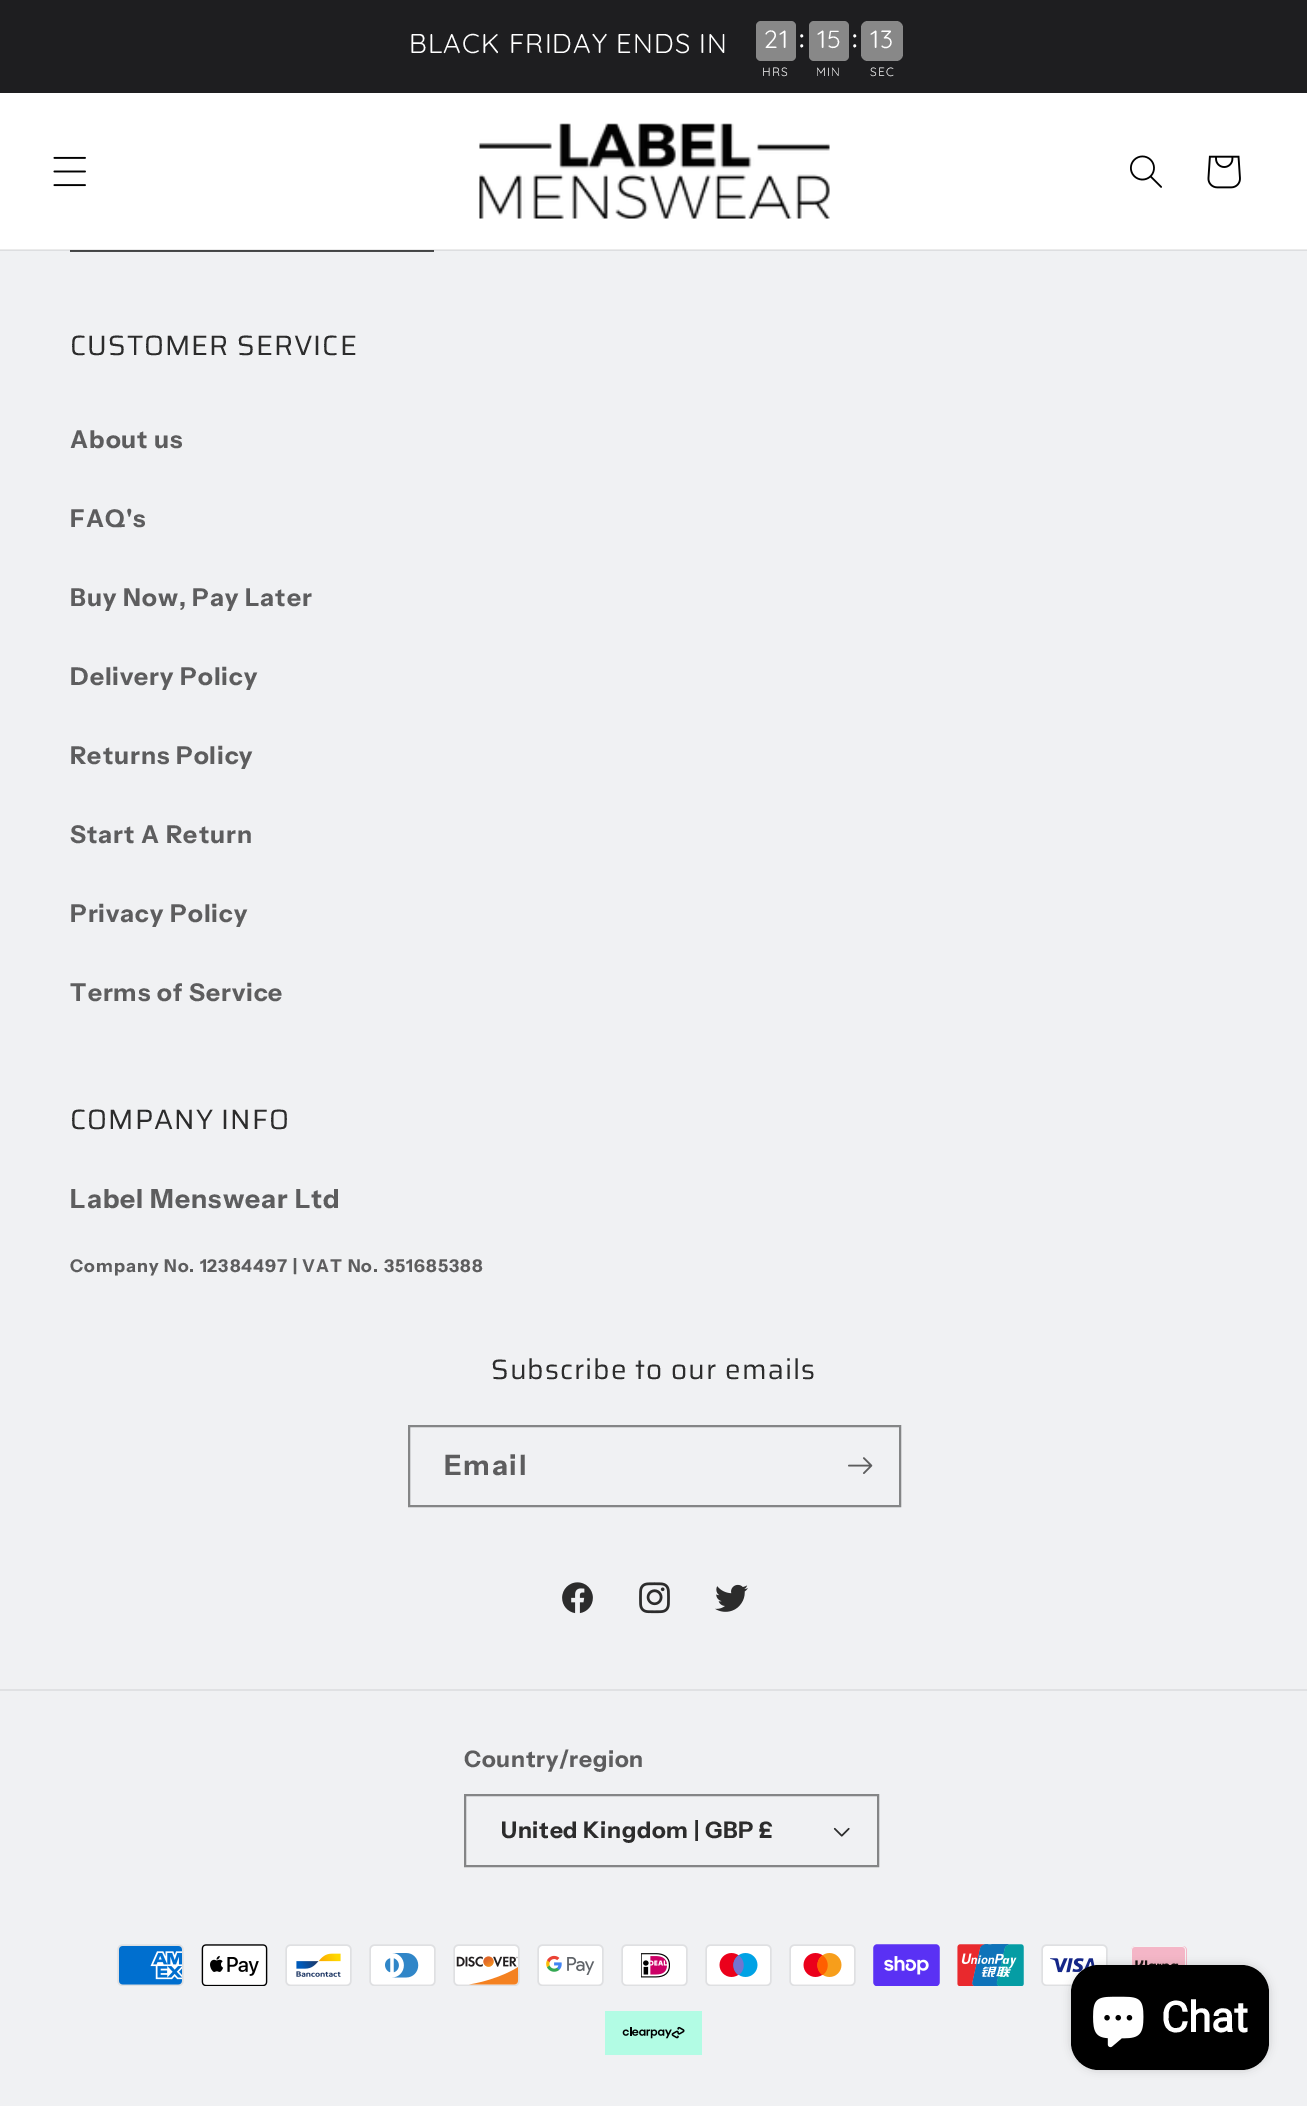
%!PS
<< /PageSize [1307 2106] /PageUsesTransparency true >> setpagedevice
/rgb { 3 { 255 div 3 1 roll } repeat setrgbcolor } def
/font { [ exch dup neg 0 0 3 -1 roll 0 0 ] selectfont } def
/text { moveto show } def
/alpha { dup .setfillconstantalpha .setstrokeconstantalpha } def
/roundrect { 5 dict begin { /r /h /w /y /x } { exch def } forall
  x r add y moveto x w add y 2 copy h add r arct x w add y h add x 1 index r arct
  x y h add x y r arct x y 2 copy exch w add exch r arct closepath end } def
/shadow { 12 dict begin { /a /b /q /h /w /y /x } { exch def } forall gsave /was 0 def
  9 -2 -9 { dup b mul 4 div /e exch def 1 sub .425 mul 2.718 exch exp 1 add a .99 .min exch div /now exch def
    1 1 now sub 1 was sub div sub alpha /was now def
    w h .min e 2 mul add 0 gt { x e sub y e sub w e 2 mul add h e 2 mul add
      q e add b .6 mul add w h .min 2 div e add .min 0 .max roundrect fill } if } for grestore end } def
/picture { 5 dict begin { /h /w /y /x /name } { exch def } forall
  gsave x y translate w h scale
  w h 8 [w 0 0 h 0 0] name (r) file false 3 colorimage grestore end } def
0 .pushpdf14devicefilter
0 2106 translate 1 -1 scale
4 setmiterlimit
240 241 243 rgb
0 0 1307 2106 rectfill
30 30 32 rgb
0 0 1307 93 rectfill
136 136 136 rgb
756 21 40 40 5 roundrect fill
809 21 40 40 5 roundrect fill
861 21 42 40 7 roundrect fill
255 255 255 rgb
0 93 1307 156 rectfill
235 235 235 rgb
0 249 1307 1 rectfill
(img_01.rgb) 53 156 33 31 picture
(img_02.rgb) 479 123 351 96 picture
(img_03.rgb) 1130 155 32 33 picture
(img_04.rgb) 1207 155 34 34 picture
221 222 224 rgb
0 250 1307 1 rectfill
67 68 68 rgb
70 250 364 1 rectfill
73 74 74 rgb
70 251 364 1 rectfill
132 133 134 rgb
2 setlinewidth
409 1426 491 80 rectstroke
(img_05.rgb) 848 1457 25 17 picture
(img_06.rgb) 562 1582 31 32 picture
(img_07.rgb) 639 1582 31 32 picture
(img_08.rgb) 715 1584 33 28 picture
224 225 227 rgb
0 1689 1307 2 rectfill
(img_09.rgb) 833 1827 17 10 picture
132 133 134 rgb
465 1795 413 71 rectstroke
(img_10.rgb) 117 1944 67 42 picture
(img_11.rgb) 201 1944 67 42 picture
(img_12.rgb) 285 1944 67 42 picture
(img_13.rgb) 369 1944 67 42 picture
(img_14.rgb) 453 1944 67 42 picture
(img_15.rgb) 537 1944 67 42 picture
(img_16.rgb) 621 1944 67 42 picture
(img_17.rgb) 705 1944 67 42 picture
(img_18.rgb) 789 1944 67 42 picture
(img_19.rgb) 873 1944 67 42 picture
(img_20.rgb) 957 1944 67 42 picture
(img_21.rgb) 1041 1944 67 42 picture
(img_22.rgb) 1131 1946 56 19 picture
(img_23.rgb) 605 2011 97 44 picture
0 0 0 rgb
1071 1965 198 105 28 4.5 0.15 shadow
1071 1965 198 105 28 roundrect fill
(img_24.rgb) 1093 1996 51 52 picture
/Quicksand-Light 27.25 font
255 255 255 rgb
409 53 moveto 1.05 0 (BLACK FRIDAY ENDS IN) ashow
/Quicksand-Light 25 font
764 48 moveto 1.05 0 (21) ashow
/LiberationSerif-Regular 27.25 font
798 47 moveto 1.05 0 (:) ashow
/Quicksand-Light 25 font
817 48 moveto 1.05 0 (15) ashow
/LiberationSerif-Regular 27.25 font
851 47 moveto 1.05 0 (:) ashow
/Quicksand-Light 25 font
870 48 moveto 1.05 0 (13) ashow
/Quicksand-Light 12 font
762 76 moveto 1.05 0 (HRS) ashow
816 76 moveto 1.05 0 (MIN) ashow
870 76 moveto 1.05 0 (SEC) ashow
/Saira-Regular 28 font
44 44 44 rgb
70 355 moveto 1.05 0 (CUSTOMER SERVICE) ashow
/InstrumentSans-Bold 24.5 font
93 93 94 rgb
70 448 moveto 1.05 0 (About us) ashow
70 527 moveto 1.05 0 (FAQ's) ashow
70 606 moveto 1.05 0 (Buy Now, Pay Later) ashow
70 685 moveto 1.05 0 (Delivery Policy) ashow
70 764 moveto 1.05 0 (Returns Policy) ashow
70 843 moveto 1.05 0 (Start A Return) ashow
70 922 moveto 1.05 0 (Privacy Policy) ashow
70 1001 moveto 1.05 0 (Terms of Service) ashow
/Saira-Regular 28 font
44 44 44 rgb
70 1129 moveto 1.05 0 (COMPANY INFO) ashow
/InstrumentSans-Bold 26.25 font
93 93 94 rgb
70 1208 moveto 1.05 0 (Label Menswear Ltd) ashow
/InstrumentSans-Bold 17.6 font
70 1272 moveto 1.05 0 (Company No. 12384497 | VAT No. 351685388) ashow
/Saira-Regular 28 font
44 44 44 rgb
491 1379 moveto 1.05 0 (Subscribe to our emails) ashow
/InstrumentSans-Bold 28 font
93 93 94 rgb
444 1475 moveto 1.75 0 (Email) ashow
/InstrumentSans-Bold 22.75 font
464 1767 moveto 0.7 0 (Country/region) ashow
44 44 44 rgb
501 1838 moveto 0.7 0 (United Kingdom | GBP £) ashow
/Roboto-Bold 42 font
255 255 255 rgb
(Chat) 1161 2032 text
.poppdf14devicefilter showpage
